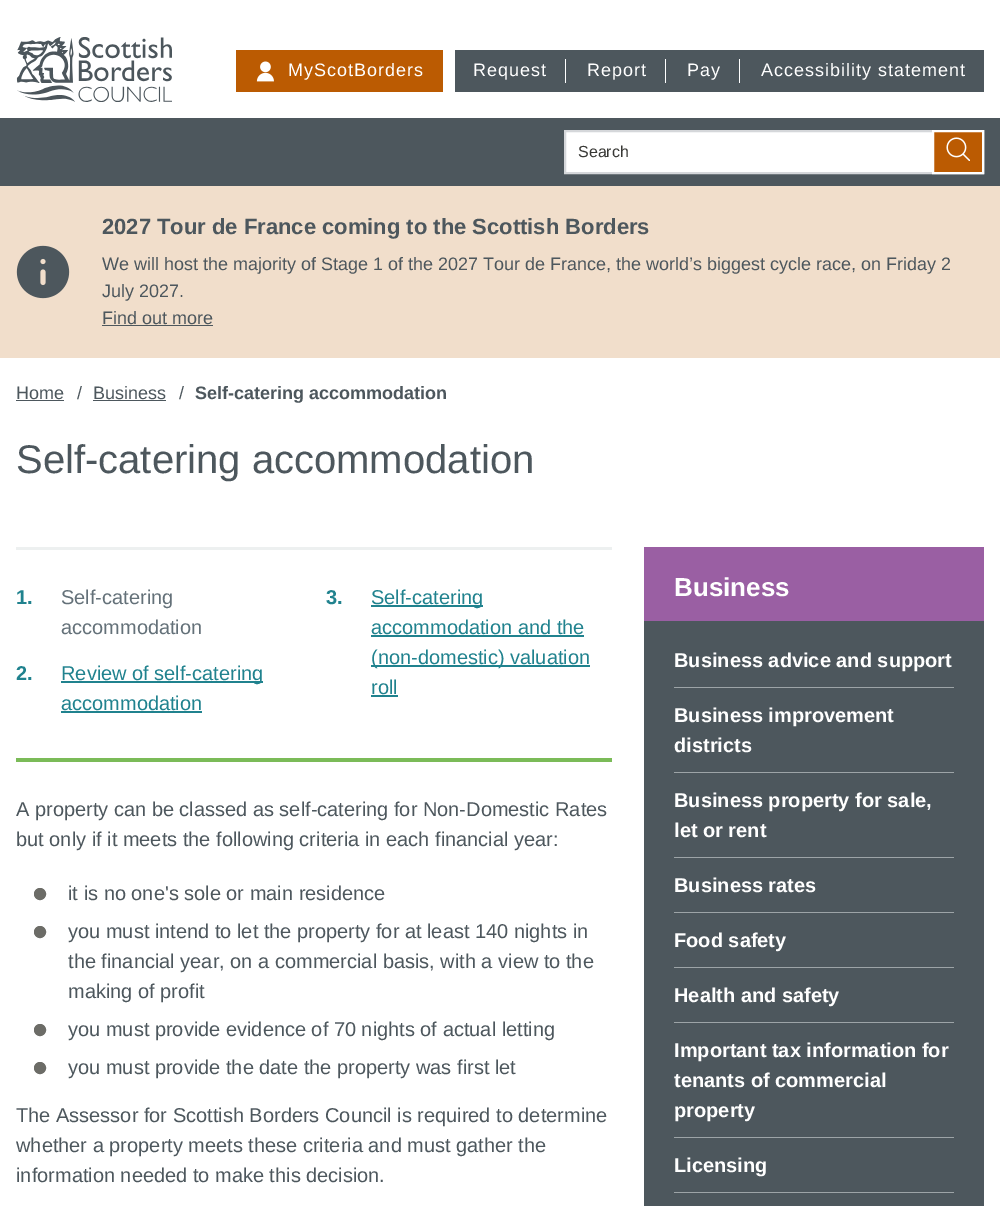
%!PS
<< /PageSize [1000 1206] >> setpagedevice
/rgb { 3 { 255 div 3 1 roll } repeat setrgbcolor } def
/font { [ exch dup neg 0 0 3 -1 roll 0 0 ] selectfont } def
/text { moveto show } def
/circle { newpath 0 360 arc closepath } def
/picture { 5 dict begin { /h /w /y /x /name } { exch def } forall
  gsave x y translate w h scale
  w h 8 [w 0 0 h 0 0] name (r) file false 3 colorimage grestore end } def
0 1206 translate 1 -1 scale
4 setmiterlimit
255 255 255 rgb
0 0 1000 1206 rectfill
(img_01.rgb) 16 37 156 65 picture
187 91 2 rgb
236 50 207 42 rectfill
(img_02.rgb) 256 61 18 21 picture
77 87 93 rgb
455 50 529 42 rectfill
255 255 255 rgb
565 59 1 24 rectfill
665 59 1 24 rectfill
739 59 1 24 rectfill
77 87 93 rgb
0 118 1000 68 rectfill
255 255 255 rgb
566 132 366 40 rectfill
213 215 218 rgb
2 setlinewidth
565 131 418 42 rectstroke
187 91 2 rgb
933 131 moveto 50 0 rlineto 0 42 rlineto -50 0 rlineto closepath gsave fill grestore
255 255 255 rgb
stroke
(img_03.rgb) 946 137 24 24 picture
241 222 203 rgb
0 186 1000 172 rectfill
(img_04.rgb) 16 245 54 54 picture
77 87 93 rgb
102 325 111 1 rectfill
16 400 48 1 rectfill
93 400 73 1 rectfill
237 240 240 rgb
16 547 596 3 rectfill
123 187 88 rgb
16 758 596 4 rectfill
32 130 142 rgb
371 605 112 2 rectfill
371 635 213 2 rectfill
371 665 219 2 rectfill
371 695 27 2 rectfill
61 681 202 2 rectfill
61 711 141 2 rectfill
108 108 103 rgb
40 894 5.5 circle gsave fill grestore
1 setlinewidth
stroke
40 932 5.5 circle gsave fill grestore
stroke
40 1030 5.5 circle gsave fill grestore
stroke
40 1068 5.5 circle gsave fill grestore
stroke
154 95 163 rgb
644 547 340 74 rectfill
77 87 93 rgb
644 621 340 585 rectfill
157 164 167 rgb
674 687 280 1 rectfill
674 772 280 1 rectfill
674 857 280 1 rectfill
674 912 280 1 rectfill
674 967 280 1 rectfill
674 1022 280 1 rectfill
674 1137 280 1 rectfill
674 1192 280 1 rectfill
/LiberationSans-Regular 18 font
255 255 255 rgb
288 76 moveto 1 0 (MyScotBorders) ashow
473 76 moveto 1 0 (Request) ashow
587 76 moveto 1 0 (Report) ashow
687 76 moveto 1 0 (Pay) ashow
761 76 moveto 1 0 (Accessibility statement) ashow
/LiberationSans-Regular 16 font
56 56 53 rgb
(Search) 578 157 text
/LiberationSans-Bold 22 font
77 87 93 rgb
(2027 Tour de France coming to the Scottish Borders) 102 234 text
/LiberationSans-Regular 18 font
(We will host the majority of Stage 1 of the 2027 Tour de France, the world’s biggest cycle race, on Friday 2) 102 270 text
(July 2027.) 102 297 text
(Find out more) 102 324 text
(Home) 16 399 text
(/) 77 399 text
(Business) 93 399 text
(/) 179 399 text
/LiberationSans-Bold 18 font
(Self-catering accommodation) 195 399 text
/LiberationSans-Regular 40 font
(Self-catering accommodation) 16 473 text
/LiberationSans-Bold 20 font
32 130 142 rgb
(1.) 16 604 text
/LiberationSans-Regular 20 font
100 113 121 rgb
(Self-catering) 61 604 text
(accommodation) 61 634 text
/LiberationSans-Bold 20 font
32 130 142 rgb
(3.) 326 604 text
/LiberationSans-Regular 20 font
(Self-catering) 371 604 text
(accommodation and the) 371 634 text
(\(non-domestic\) valuation) 371 664 text
(roll) 371 694 text
/LiberationSans-Bold 20 font
(2.) 16 680 text
/LiberationSans-Regular 20 font
(Review of self-catering) 61 680 text
(accommodation) 61 710 text
77 87 93 rgb
(A property can be classed as self-catering for Non-Domestic Rates) 16 816 text
(but only if it meets the following criteria in each financial year:) 16 846 text
(it is no one's sole or main residence) 68 900 text
(you must intend to let the property for at least 140 nights in) 68 938 text
(the financial year, on a commercial basis, with a view to the) 68 968 text
(making of profit) 68 998 text
(you must provide evidence of 70 nights of actual letting) 68 1036 text
(you must provide the date the property was first let) 68 1074 text
(The Assessor for Scottish Borders Council is required to determine) 16 1122 text
(whether a property meets these criteria and must gather the) 16 1152 text
(information needed to make this decision.) 16 1182 text
/LiberationSans-Bold 26 font
255 255 255 rgb
(Business) 674 596 text
/LiberationSans-Bold 20 font
(Business advice and support) 674 667 text
(Business improvement) 674 722 text
(districts) 674 752 text
(Business property for sale,) 674 807 text
(let or rent) 674 837 text
(Business rates) 674 892 text
(Food safety) 674 947 text
(Health and safety) 674 1002 text
(Important tax information for) 674 1057 text
(tenants of commercial) 674 1087 text
(property) 674 1117 text
(Licensing) 674 1172 text
showpage
